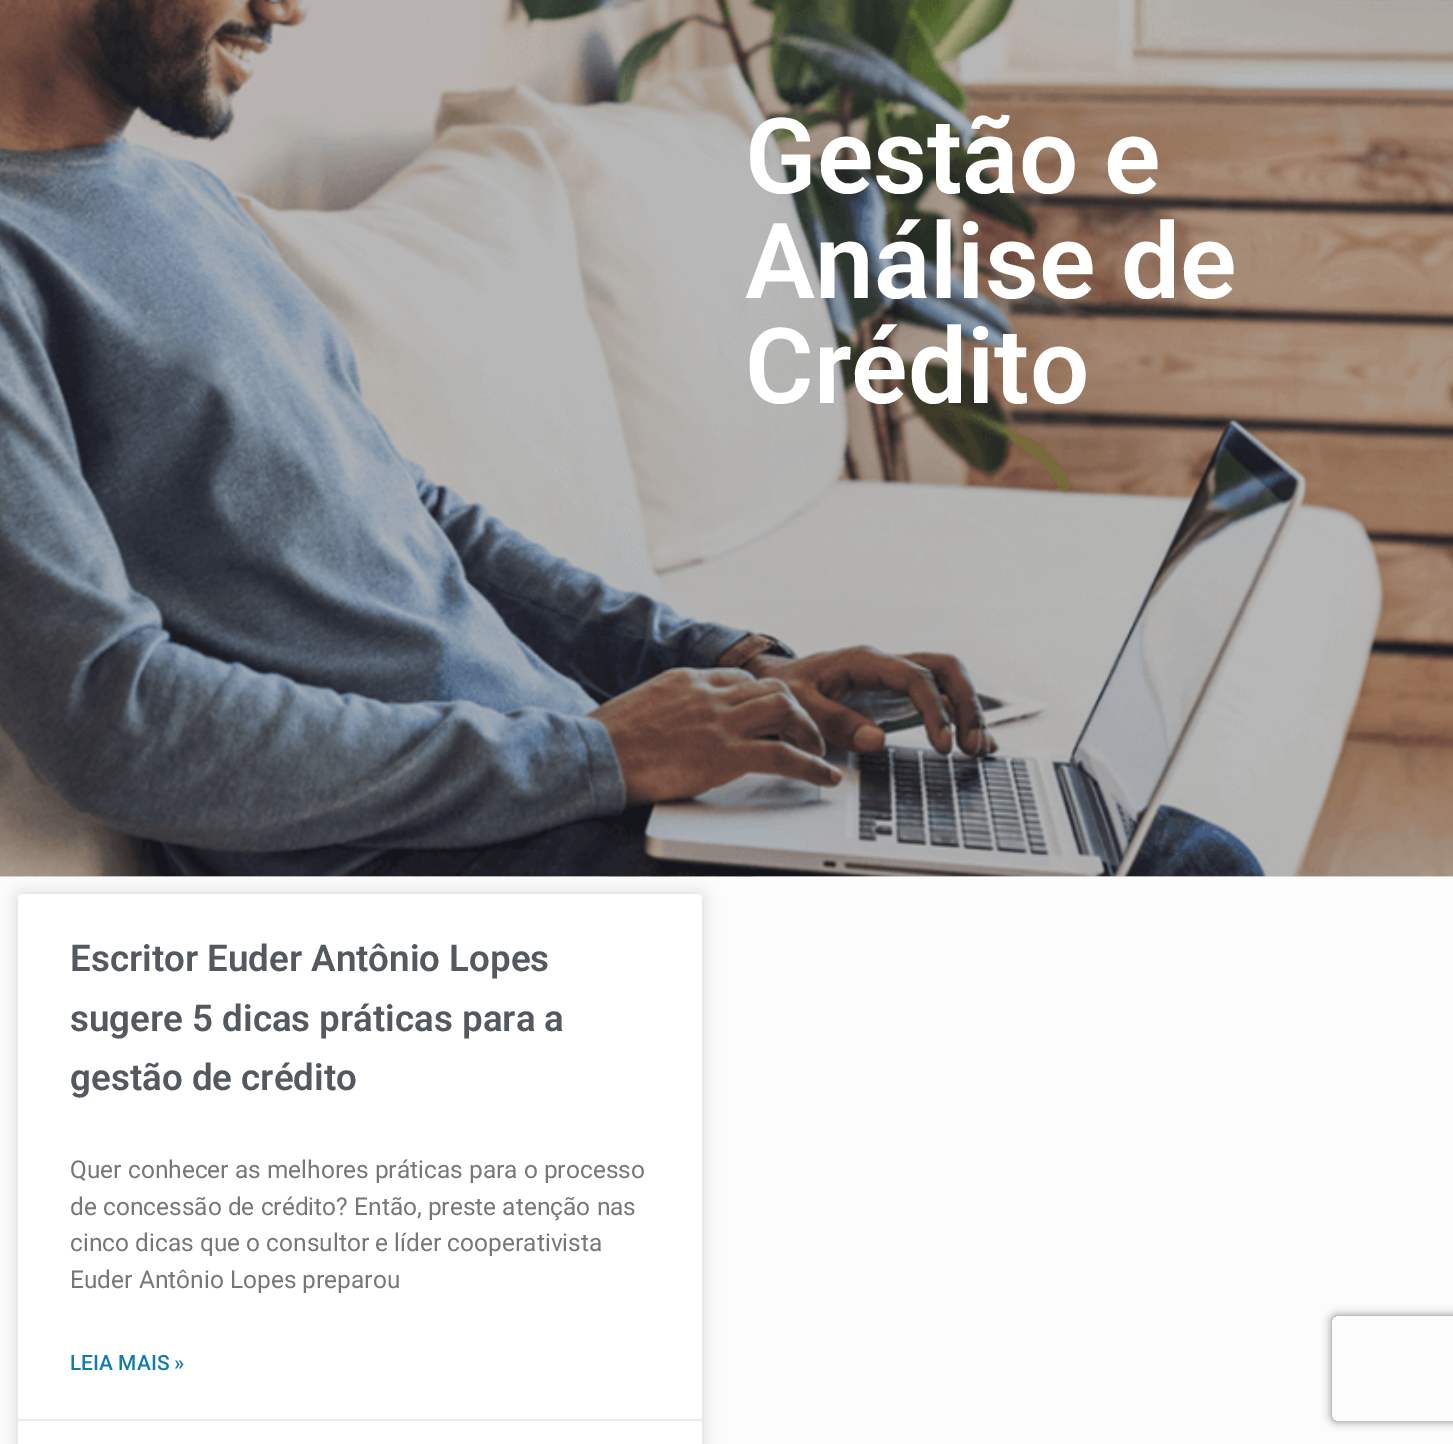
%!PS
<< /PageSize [1453 1444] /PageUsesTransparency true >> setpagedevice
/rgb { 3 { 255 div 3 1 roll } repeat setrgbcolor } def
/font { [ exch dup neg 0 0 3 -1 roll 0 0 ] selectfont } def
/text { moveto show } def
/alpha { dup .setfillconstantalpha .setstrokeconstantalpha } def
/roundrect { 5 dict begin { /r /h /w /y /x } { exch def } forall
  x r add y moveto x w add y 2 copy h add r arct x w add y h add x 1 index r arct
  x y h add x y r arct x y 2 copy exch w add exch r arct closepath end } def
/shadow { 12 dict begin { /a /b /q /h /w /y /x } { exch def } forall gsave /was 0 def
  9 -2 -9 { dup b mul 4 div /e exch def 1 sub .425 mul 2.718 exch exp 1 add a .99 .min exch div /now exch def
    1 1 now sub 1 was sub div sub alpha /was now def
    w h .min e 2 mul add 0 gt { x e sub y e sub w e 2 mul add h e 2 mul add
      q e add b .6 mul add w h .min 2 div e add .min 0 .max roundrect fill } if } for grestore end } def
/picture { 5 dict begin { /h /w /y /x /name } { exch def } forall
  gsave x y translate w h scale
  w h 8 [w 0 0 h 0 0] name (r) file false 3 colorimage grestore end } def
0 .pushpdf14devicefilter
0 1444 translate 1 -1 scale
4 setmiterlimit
252 252 252 rgb
0 0 1453 1444 rectfill
(img_01.rgb) 0 0 1453 877 picture
0 0 0 rgb
18 894 684 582 5 9 0.15 shadow
255 255 255 rgb
18 894 684 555 5 roundrect fill
234 234 234 rgb
18 1419 684 2 rectfill
gsave
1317 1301 moveto 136 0 rlineto 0 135 rlineto -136 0 rlineto closepath 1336 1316 moveto 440 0 rlineto 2 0 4 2 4 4 rcurveto 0 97 rlineto 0 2 -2 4 -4 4 rcurveto -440 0 rlineto -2 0 -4 -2 -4 -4 rcurveto 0 -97 rlineto 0 -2 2 -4 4 -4 rcurveto closepath eoclip newpath
128 128 128 rgb
1332 1316 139 105 4 4.5 1 shadow
grestore
/Roboto-SemiBold 105 font
255 255 255 rgb
(Gestão e) 745 193 text
(Análise de) 745 298 text
(Crédito) 745 403 text
/Roboto-SemiBold 36.75 font
84 89 95 rgb
(Escritor Euder Antônio Lopes) 70 971 text
(sugere 5 dicas práticas para a) 70 1031 text
(gestão de crédito) 70 1090 text
/Roboto-Regular 24.5 font
119 119 119 rgb
(Quer conhecer as melhores práticas para o processo) 70 1178 text
(de concessão de crédito? Então, preste atenção nas) 70 1215 text
(cinco dicas que o consultor e líder cooperativista) 70 1251 text
(Euder Antônio Lopes preparou) 70 1288 text
/Roboto-Medium 21 font
19 124 175 rgb
(LEIA MAIS ») 70 1370 text
.poppdf14devicefilter showpage
